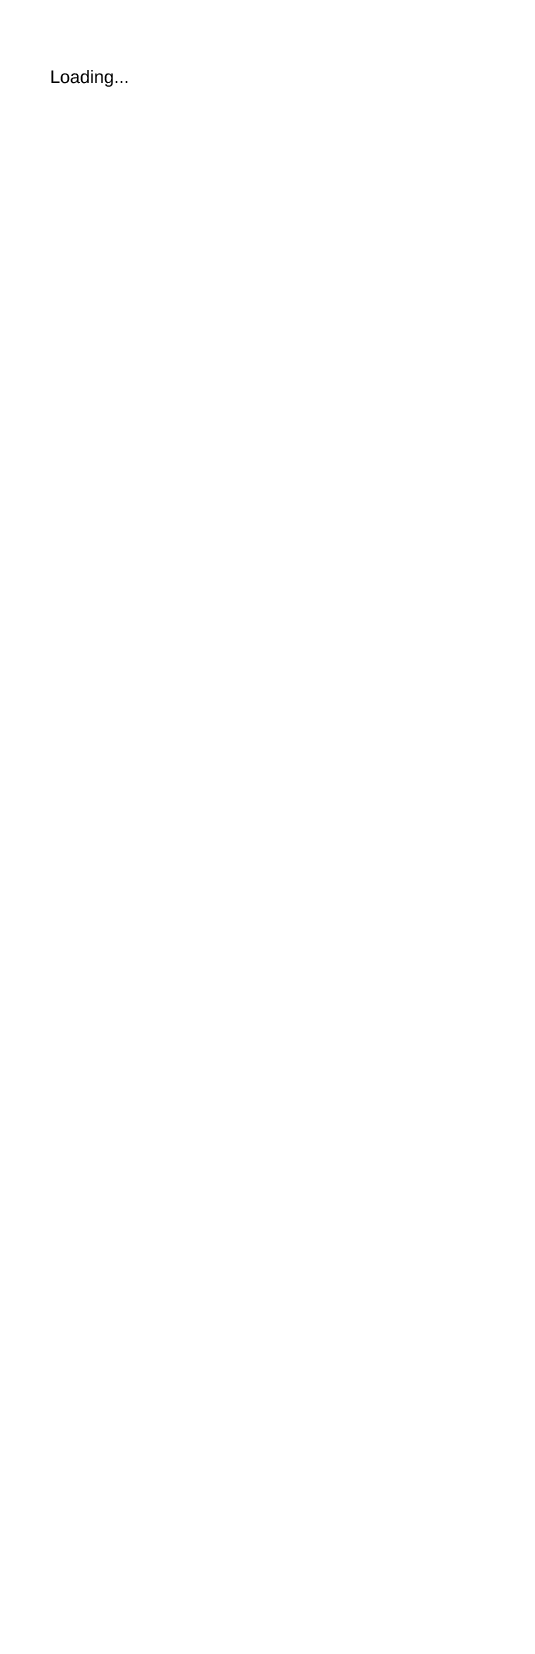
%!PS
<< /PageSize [535 1654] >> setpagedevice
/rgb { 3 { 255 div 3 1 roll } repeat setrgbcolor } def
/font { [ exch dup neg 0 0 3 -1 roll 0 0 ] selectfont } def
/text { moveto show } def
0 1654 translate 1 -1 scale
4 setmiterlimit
255 255 255 rgb
0 0 535 1654 rectfill
/LiberationSans-Regular 18 font
0 0 0 rgb
(Loading...) 50 83 text
showpage
